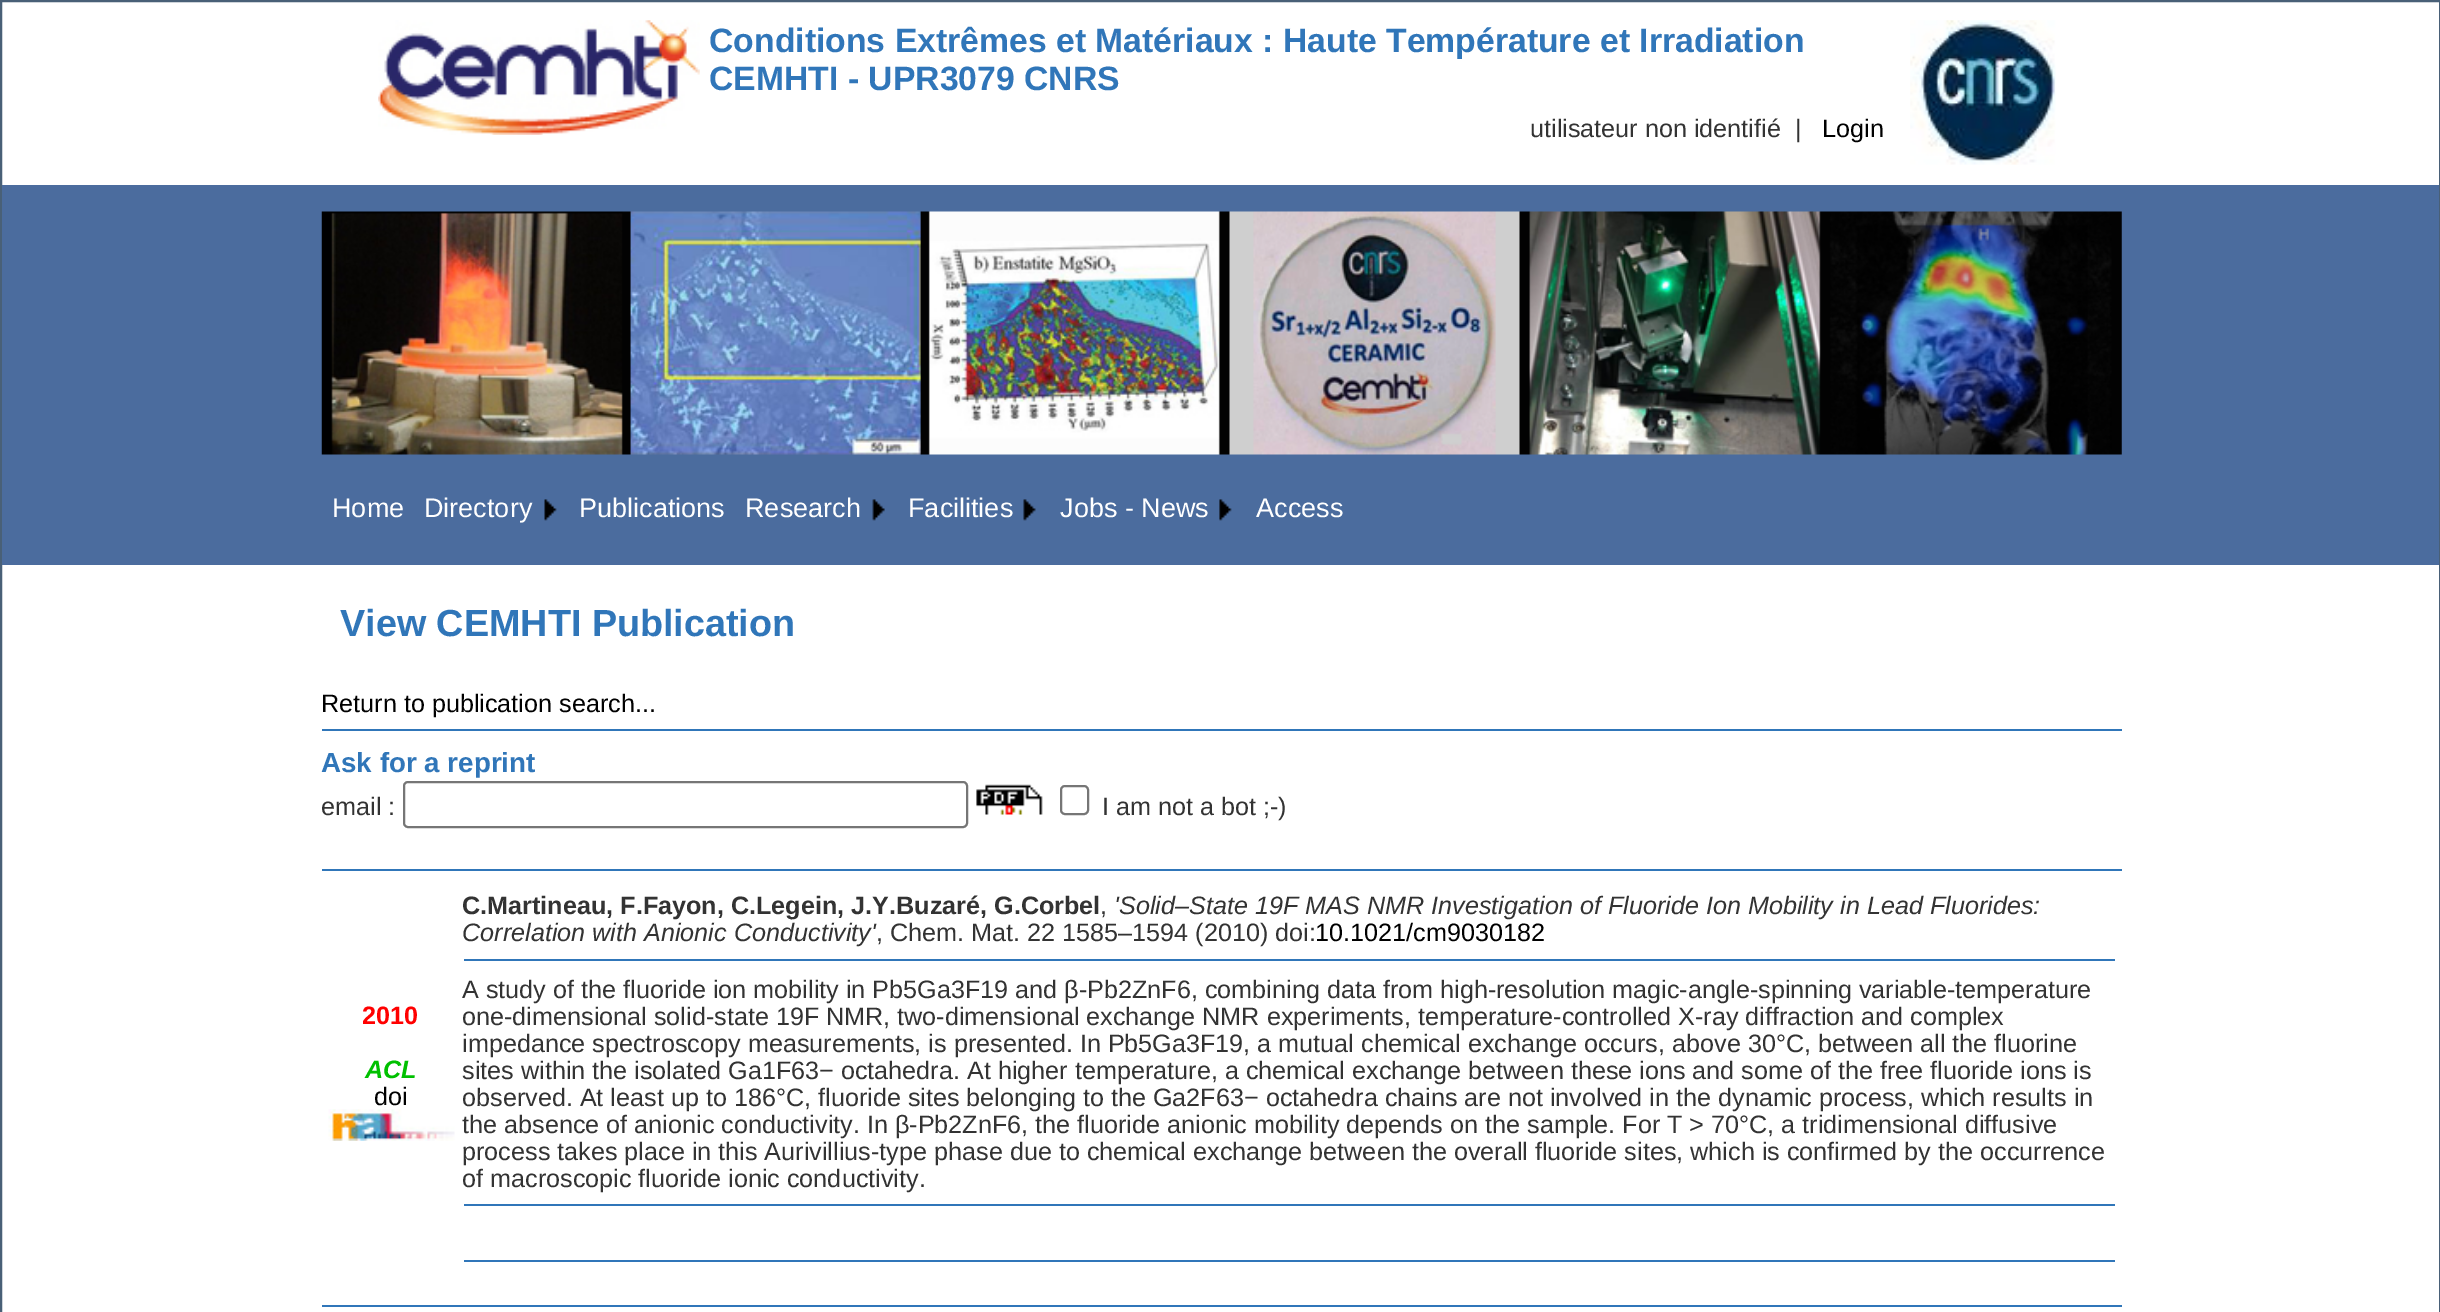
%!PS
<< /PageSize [2440 1312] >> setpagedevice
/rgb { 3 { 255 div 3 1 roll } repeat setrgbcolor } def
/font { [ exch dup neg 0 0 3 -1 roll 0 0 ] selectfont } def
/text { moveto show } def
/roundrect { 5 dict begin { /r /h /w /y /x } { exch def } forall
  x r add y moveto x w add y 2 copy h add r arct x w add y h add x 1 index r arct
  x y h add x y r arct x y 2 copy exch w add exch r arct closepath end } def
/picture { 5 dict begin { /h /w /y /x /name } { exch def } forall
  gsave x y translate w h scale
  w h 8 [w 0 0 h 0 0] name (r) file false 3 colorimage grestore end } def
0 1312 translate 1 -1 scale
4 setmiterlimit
255 255 255 rgb
0 0 2440 1312 rectfill
73 96 119 rgb
2 setlinewidth
1 1 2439 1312 rectstroke
(img_01.rgb) 378 20 322 115 picture
(img_02.rgb) 1910 20 146 145 picture
75 108 158 rgb
2 185 2437 380 rectfill
(img_03.rgb) 321 211 1801 244 picture
(img_04.rgb) 544 499 13 22 picture
(img_05.rgb) 872 499 13 22 picture
(img_06.rgb) 1023 499 13 22 picture
(img_07.rgb) 1219 499 13 22 picture
48 118 185 rgb
322 729 1800 2 rectfill
118 118 118 rgb
404 782 563 45 4 roundrect stroke
(img_08.rgb) 976 784 67 31 picture
1061 786 27 28 4 roundrect stroke
48 118 185 rgb
322 869 1800 2 rectfill
(img_09.rgb) 328 1109 127 32 picture
464 959 1651 2 rectfill
464 1204 1651 2 rectfill
464 1260 1651 2 rectfill
322 1305 1800 2 rectfill
/LiberationSans-Bold 33.75 font
(Conditions Extrêmes et Matériaux : Haute Température et Irradiation) 709 52 text
(CEMHTI - UPR3079 CNRS) 709 90 text
/LiberationSans-Regular 25.2 font
51 51 51 rgb
(utilisateur non identifié) 1530 137 text
(|) 1795 137 text
0 0 0 rgb
(Login) 1822 137 text
/LiberationSans-Regular 27 font
255 255 255 rgb
(Home) 332 517 text
(Directory) 424 517 text
(Publications) 579 517 text
(Research) 745 517 text
(Facilities) 908 517 text
(Jobs - News) 1060 517 text
(Access) 1256 517 text
/LiberationSans-Bold 37.75 font
48 118 185 rgb
(View CEMHTI Publication) 340 636 text
/LiberationSans-Regular 25.2 font
0 0 0 rgb
(Return to publication search...) 321 712 text
/LiberationSans-Bold 27.75 font
48 118 185 rgb
(Ask for a reprint) 321 772 text
/LiberationSans-Regular 25.2 font
51 51 51 rgb
(email :) 321 815 text
(I am not a bot ;-\)) 1102 815 text
/LiberationSans-Bold 25.2 font
255 0 0 rgb
(2010) 362 1024 text
/LiberationSans-BoldItalic 25.2 font
0 192 0 rgb
(ACL) 365 1078 text
/LiberationSans-Regular 25.2 font
0 0 0 rgb
(doi) 374 1105 text
/LiberationSans-Bold 25.2 font
51 51 51 rgb
(C.Martineau, F.Fayon, C.Legein, J.Y.Buzaré, G.Corbel) 462 914 text
/LiberationSans-Regular 25.2 font
(,) 1100 914 text
/LiberationSans-Italic 25.2 font
('Solid–State 19F MAS NMR Investigation of Fluoride Ion Mobility in Lead Fluorides:) 1114 914 text
(Correlation with Anionic Conductivity') 462 941 text
/LiberationSans-Regular 25.2 font
(, Chem. Mat. 22 1585–1594 \(2010\) doi:) 876 941 text
0 0 0 rgb
(10.1021/cm9030182) 1315 941 text
51 51 51 rgb
(A study of the fluoride ion mobility in Pb5Ga3F19 and β-Pb2ZnF6, combining data from high-resolution magic-angle-spinning variable-temperature) 462 998 text
462 1025 moveto -0.1 0 32 (one-dimensional solid-state 19F NMR, two-dimensional exchange NMR experiments, temperature-controlled X-ray diffraction and complex) widthshow
(impedance spectroscopy measurements, is presented. In Pb5Ga3F19, a mutual chemical exchange occurs, above 30°C, between all the fluorine) 462 1052 text
(sites within the isolated Ga1F63− octahedra. At higher temperature, a chemical exchange between these ions and some of the free fluoride ions is) 462 1079 text
(observed. At least up to 186°C, fluoride sites belonging to the Ga2F63− octahedra chains are not involved in the dynamic process, which results in) 462 1106 text
(the absence of anionic conductivity. In β-Pb2ZnF6, the fluoride anionic mobility depends on the sample. For T > 70°C, a tridimensional diffusive) 462 1133 text
(process takes place in this Aurivillius-type phase due to chemical exchange between the overall fluoride sites, which is confirmed by the occurrence) 462 1160 text
(of macroscopic fluoride ionic conductivity.) 462 1187 text
showpage
